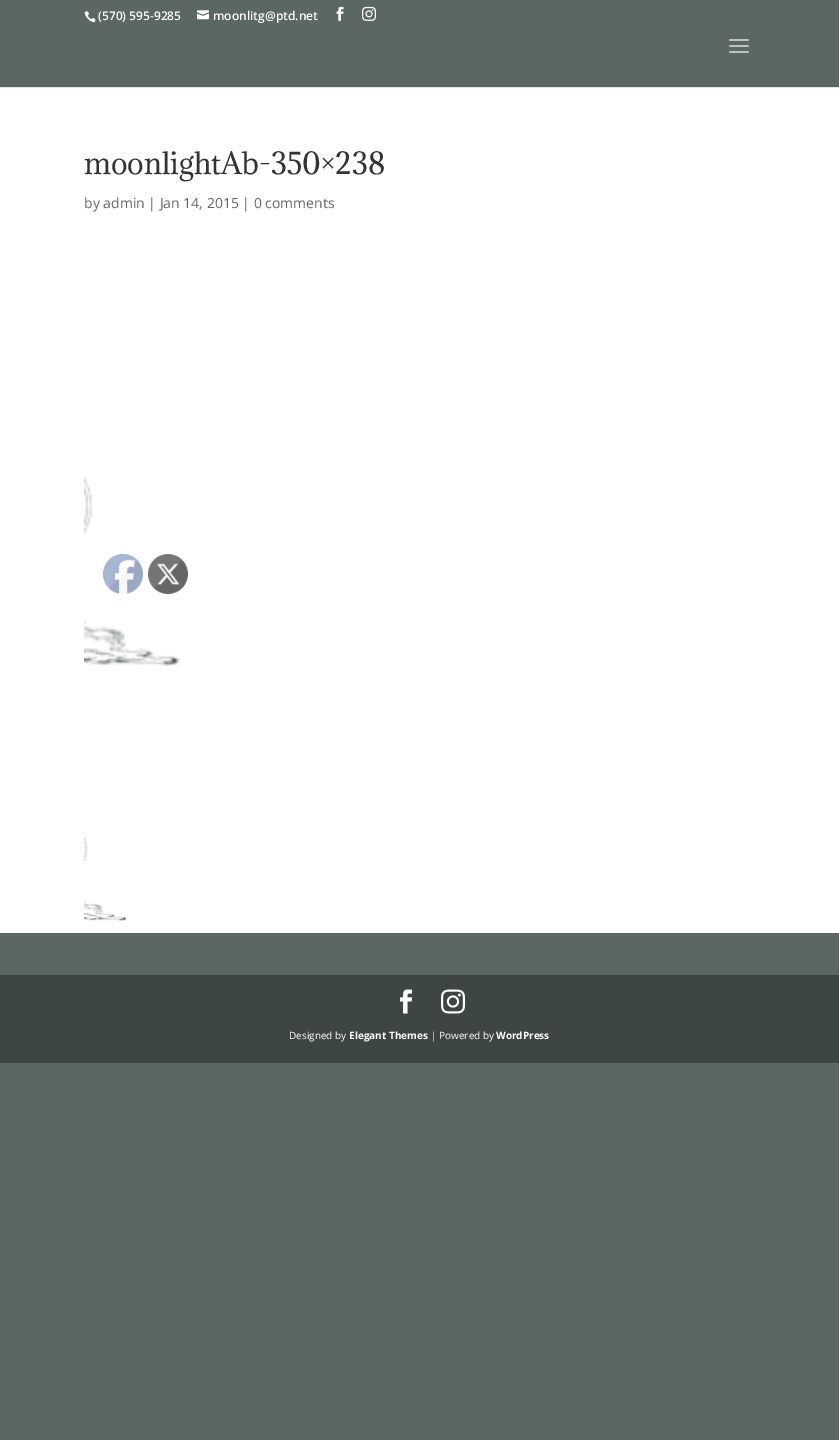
%!PS
<< /PageSize [839 1440] >> setpagedevice
/rgb { 3 { 255 div 3 1 roll } repeat setrgbcolor } def
/font { [ exch dup neg 0 0 3 -1 roll 0 0 ] selectfont } def
/text { moveto show } def
/picture { 5 dict begin { /h /w /y /x /name } { exch def } forall
  gsave x y translate w h scale
  w h 8 [w 0 0 h 0 0] name (r) file false 3 colorimage grestore end } def
0 1440 translate 1 -1 scale
4 setmiterlimit
91 103 99 rgb
0 0 839 1440 rectfill
(img_01.rgb) 84 11 12 12 picture
(img_02.rgb) 197 10 12 10 picture
(img_03.rgb) 336 6 8 15 picture
(img_04.rgb) 362 6 14 15 picture
230 230 230 rgb
0 87 839 1 rectfill
(img_05.rgb) 729 39 20 14 picture
255 255 255 rgb
0 88 839 845 rectfill
(img_06.rgb) 84 477 96 190 picture
(img_07.rgb) 84 837 43 84 picture
62 70 67 rgb
0 975 839 88 rectfill
(img_08.rgb) 400 989 13 25 picture
(img_09.rgb) 441 989 24 25 picture
(img_10.rgb) 103 554 40 40 picture
(img_11.rgb) 148 554 40 40 picture
/OpenSans-SemiBold 12 font
255 255 255 rgb
(\(570\) 595-9285) 98 20 text
(moonlitg@ptd.net) 213 20 text
/Adamina-Regular 28 font
51 51 51 rgb
(moonlightAb-350×238) 84 174 text
/OpenSans-Regular 14 font
102 102 102 rgb
(by admin | Jan 14, 2015 | 0 comments) 84 208 text
/OpenSans-Regular 10 font
255 255 255 rgb
(Designed by) 289 1039 text
/OpenSans-Bold 10 font
(Elegant Themes) 349 1039 text
/OpenSans-Regular 10 font
(| Powered by) 431 1039 text
/OpenSans-Bold 10 font
(WordPress) 496 1039 text
showpage
